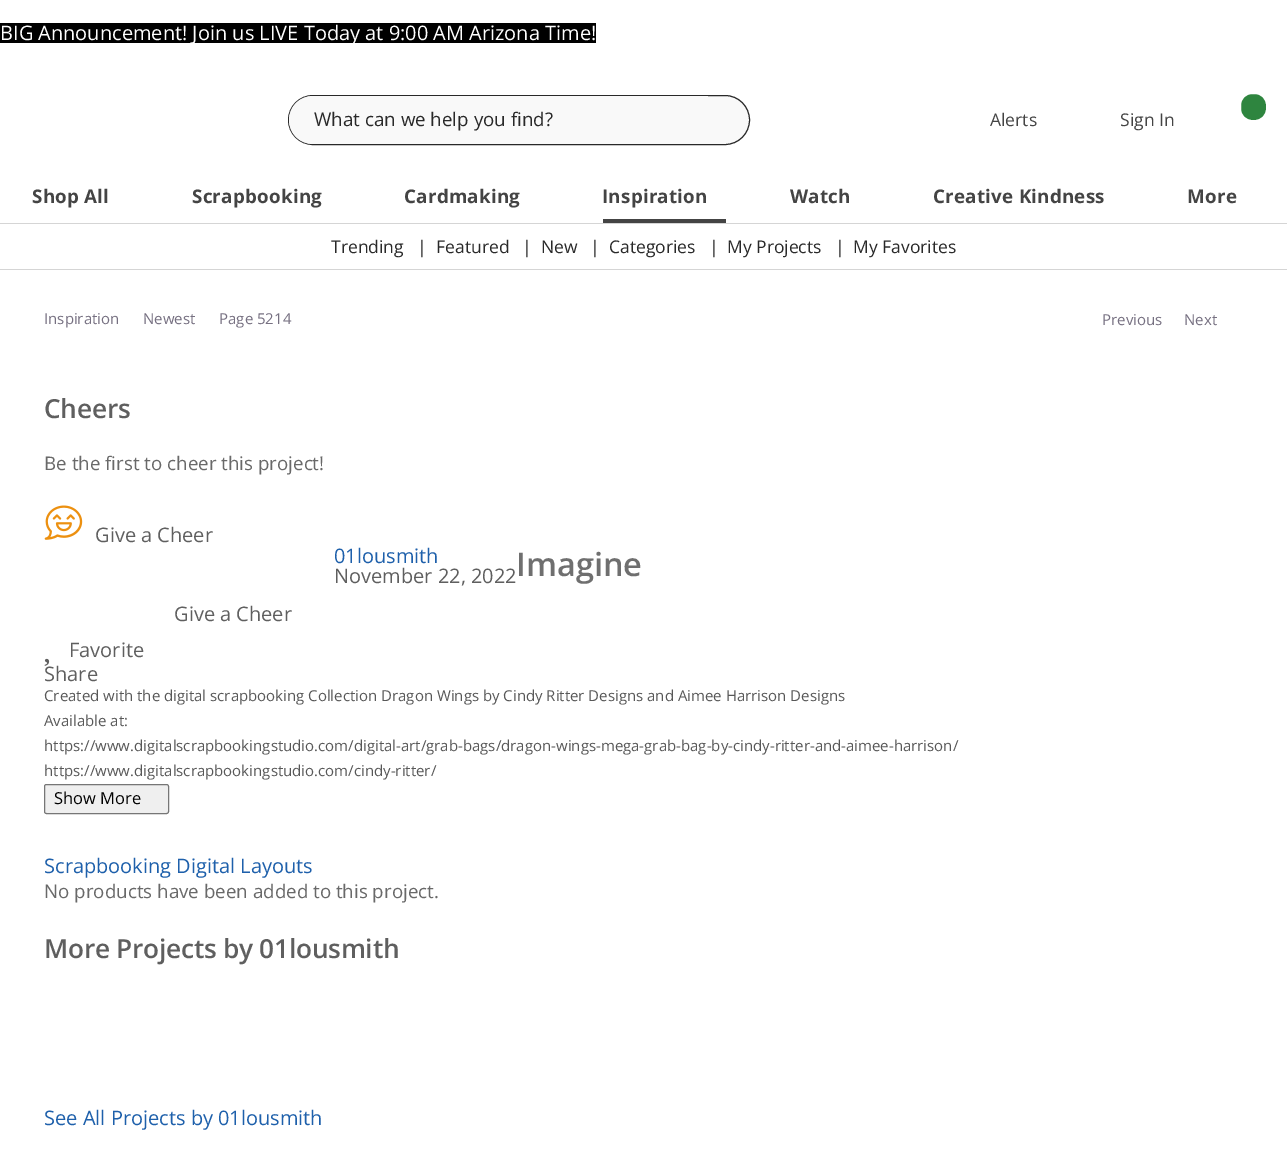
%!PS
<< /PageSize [1287 1149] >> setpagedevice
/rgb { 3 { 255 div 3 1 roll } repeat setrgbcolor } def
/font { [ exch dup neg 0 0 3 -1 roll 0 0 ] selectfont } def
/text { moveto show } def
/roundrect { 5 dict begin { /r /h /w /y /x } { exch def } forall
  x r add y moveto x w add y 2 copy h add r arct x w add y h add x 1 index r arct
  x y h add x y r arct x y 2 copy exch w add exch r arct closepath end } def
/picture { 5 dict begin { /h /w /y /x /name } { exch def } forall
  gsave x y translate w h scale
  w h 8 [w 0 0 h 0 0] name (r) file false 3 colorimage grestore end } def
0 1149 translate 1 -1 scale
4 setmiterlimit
255 255 255 rgb
0 0 1287 1149 rectfill
0 0 0 rgb
0 23 596 20 rectfill
249 249 249 rgb
288.5 95.5 461 49 24.5 roundrect gsave fill grestore
41 41 41 rgb
stroke
249 249 249 rgb
313 96 moveto 395 0 rlineto 0 48 rlineto -395 0 rlineto -13.5 0 -24 -10.5 -24 -24 rcurveto 0 -13.5 10.5 -24 24 -24 rcurveto closepath fill
46 133 63 rgb
1239.5 92.5 28 29 12.5 roundrect gsave fill grestore
255 255 255 rgb
3 setlinewidth
stroke
213 213 213 rgb
0 223 1287 1 rectfill
68 68 68 rgb
603 219 123 4 rectfill
213 213 213 rgb
0 269 1287 1 rectfill
(img_01.rgb) 44 505 39 35 picture
(img_02.rgb) 44 658 6 8 picture
239 239 239 rgb
44.5 784.5 124 29 2 roundrect gsave fill grestore
118 118 118 rgb
1 setlinewidth
stroke
/OpenSans-Regular 20 font
255 255 255 rgb
(BIG Announcement! Join us LIVE Today at 9:00 AM Arizona Time!) 0 40 text
/OpenSans-Regular 18.75 font
41 41 41 rgb
(What can we help you find?) 314 126 text
/OpenSans-Regular 17.5 font
68 68 68 rgb
(Alerts) 990 126 text
(Sign In) 1120 126 text
/OpenSans-Bold 18.75 font
32 203 moveto 0.25 0 (Shop All) ashow
192 203 moveto 0.25 0 (Scrapbooking) ashow
404 203 moveto 0.25 0 (Cardmaking) ashow
602 203 moveto 0.25 0 (Inspiration) ashow
790 203 moveto 0.25 0 (Watch) ashow
933 203 moveto 0.25 0 (Creative Kindness) ashow
1187 203 moveto 0.25 0 (More) ashow
/OpenSans-Regular 17.5 font
41 41 41 rgb
(Trending) 331 253 text
(|) 417 253 text
(Featured) 436 253 text
(|) 522 253 text
(New) 541 253 text
(|) 590 253 text
(Categories) 609 253 text
(|) 709 253 text
(My Projects) 727 253 text
(|) 835 253 text
(My Favorites) 853 253 text
/OpenSans-Regular 15 font
118 112 129 rgb
(Inspiration) 44 324 text
(Newest) 143 324 text
(Page 5214) 219 324 text
(Previous) 1102 325 text
(Next) 1184 325 text
/OpenSans-SemiBold 26.25 font
95 95 95 rgb
44 418 moveto -0.25 0 (Cheers) ashow
/OpenSans-Regular 18.75 font
105 105 105 rgb
(Be the first to cheer this project!) 44 470 text
/OpenSans-Regular 20 font
95 95 95 rgb
(Give a Cheer) 95 542 text
30 96 171 rgb
(01lousmith) 334 563 text
95 95 95 rgb
(November 22, 2022) 334 583 text
/OpenSans-SemiBold 32.5 font
111 111 111 rgb
(Imagine) 516 576 text
/OpenSans-Regular 20 font
95 95 95 rgb
(Give a Cheer) 174 621 text
(Favorite) 69 657 text
(Share) 44 681 text
/OpenSans-Regular 15 font
88 88 88 rgb
(Created with the digital scrapbooking Collection Dragon Wings by Cindy Ritter Designs and Aimee Harrison Designs) 44 701 text
(Available at:) 44 726 text
(https://www.digitalscrapbookingstudio.com/digital-art/grab-bags/dragon-wings-mega-grab-bag-by-cindy-ritter-and-aimee-harrison/) 44 751 text
(https://www.digitalscrapbookingstudio.com/cindy-ritter/) 44 776 text
/OpenSans-Regular 16.5 font
0 0 0 rgb
(Show More) 54 804 text
/OpenSans-Regular 20 font
30 96 171 rgb
(Scrapbooking Digital Layouts) 44 873 text
/OpenSans-Regular 18.75 font
105 105 105 rgb
(No products have been added to this project.) 44 898 text
/OpenSans-SemiBold 26.25 font
95 95 95 rgb
44 958 moveto -0.25 0 (More Projects by 01lousmith) ashow
/OpenSans-Regular 20 font
30 96 171 rgb
(See All Projects by 01lousmith) 44 1125 text
showpage
